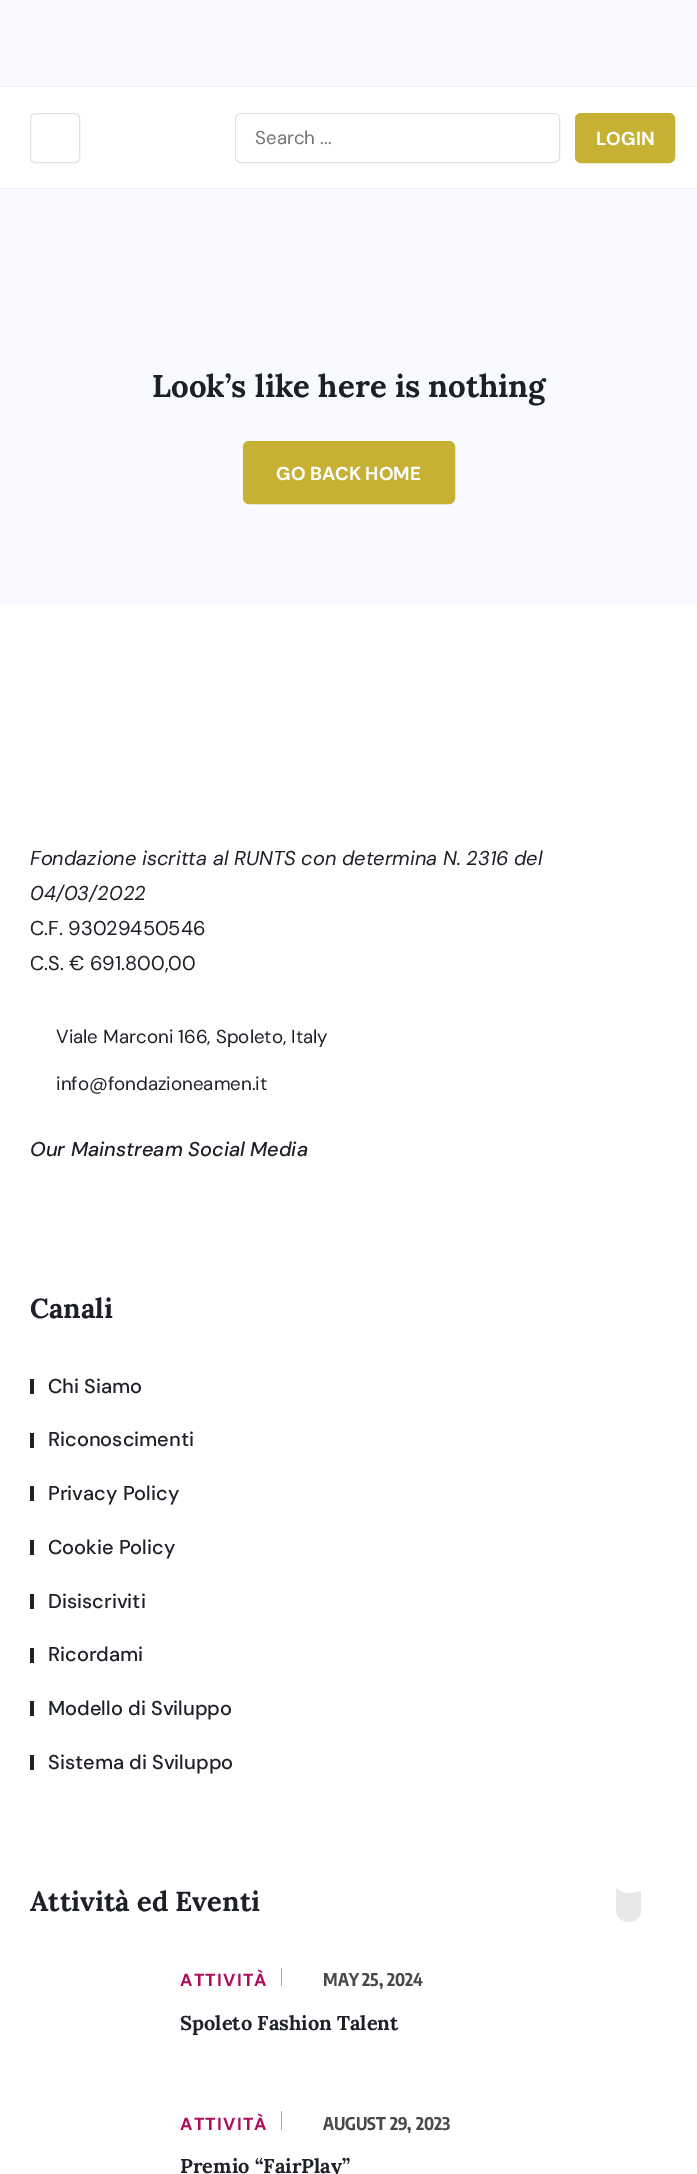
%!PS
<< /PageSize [697 2174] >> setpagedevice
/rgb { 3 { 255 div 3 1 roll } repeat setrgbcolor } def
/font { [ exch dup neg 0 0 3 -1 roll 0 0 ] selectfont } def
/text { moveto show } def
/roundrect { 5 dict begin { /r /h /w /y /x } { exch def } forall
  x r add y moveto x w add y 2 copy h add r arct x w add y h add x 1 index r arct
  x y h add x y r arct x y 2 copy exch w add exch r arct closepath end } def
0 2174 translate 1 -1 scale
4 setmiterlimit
249 250 255 rgb
0 0 697 2174 rectfill
255 255 255 rgb
0 87 697 101 rectfill
240 240 240 rgb
0 86 697 1 rectfill
0 188 697 1 rectfill
226 226 226 rgb
30.5 113.5 49 49 4.5 roundrect stroke
235.5 113.5 324 49 5.5 roundrect stroke
255 255 255 rgb
236 114 323 47 5 roundrect fill
198 177 53 rgb
575.5 113.5 99 49 5.5 roundrect gsave fill grestore
stroke
243.5 441.5 211 62 5.5 roundrect gsave fill grestore
stroke
255 255 255 rgb
0 604 697 1570 rectfill
29 32 39 rgb
30 1379 4 15 rectfill
30 1433 4 15 rectfill
30 1486 4 15 rectfill
30 1540 4 15 rectfill
30 1594 4 15 rectfill
30 1648 4 15 rectfill
30 1701 4 15 rectfill
30 1755 4 15 rectfill
170 170 170 rgb
281 1968 1 18 rectfill
281 2111 1 19 rectfill
232 232 232 rgb
641 1866 moveto 0 44 rlineto 0 7 -5 12 -12 12 rcurveto -7 0 -13 -5 -13 -12 rcurveto 0 -44 rlineto 0 -7 6 -12 13 -12 rcurveto 7 0 12 5 12 12 rcurveto closepath fill
255 255 255 rgb
651 1872 moveto 0 28 -42 28 -42 0 rcurveto 0 -27 42 -27 42 0 rcurveto closepath fill
/DMSans-Regular 18.75 font
117 117 117 rgb
(Search ...) 255 144 text
/DMSans-Bold 18.75 font
255 255 255 rgb
(LOGIN) 596 145 text
/Lora-Bold 31.25 font
29 32 39 rgb
(Look’s like here is nothing) 152 397 text
/DMSans-Bold 18.75 font
255 255 255 rgb
(GO BACK HOME) 276 480 text
/DMSans-Italic 20 font
29 32 39 rgb
(Fondazione iscritta al RUNTS con determina N. 2316 del) 30 865 text
(04/03/2022) 30 900 text
/DMSans-Regular 20 font
(C.F. 93029450546) 30 935 text
(C.S. € 691.800,00) 30 970 text
/DMSans-Regular 18.75 font
(Viale Marconi 166, Spoleto, Italy) 56 1043 text
(info@fondazioneamen.it) 56 1090 text
/DMSans-MediumItalic 20 font
(Our Mainstream Social Media) 30 1156 text
/Lora-Bold 27.5 font
(Canali) 30 1318 text
/DMSans-Medium 20 font
(Chi Siamo) 48 1393 text
(Riconoscimenti) 48 1446 text
(Privacy Policy) 48 1500 text
(Cookie Policy) 48 1554 text
(Disiscriviti) 48 1608 text
(Ricordami) 48 1661 text
(Modello di Sviluppo) 48 1715 text
(Sistema di Sviluppo) 48 1769 text
/Lora-Bold 27.5 font
(Attività ed Eventi) 30 1911 text
/DMSans-Bold 17.5 font
173 12 92 rgb
180 1986 moveto 1.25 0 (ATTIVITÀ) ashow
/EncodeSansCondensed-Bold 17.5 font
73 73 73 rgb
(MAY 25, 2024) 323 1986 text
/Lora-Bold 20 font
29 32 39 rgb
(Spoleto Fashion Talent) 180 2030 text
/DMSans-Bold 17.5 font
173 12 92 rgb
180 2130 moveto 1.25 0 (ATTIVITÀ) ashow
/EncodeSansCondensed-Bold 17.5 font
73 73 73 rgb
(AUGUST 29, 2023) 323 2130 text
/Lora-Bold 20 font
29 32 39 rgb
(Premio “FairPlay”) 180 2173 text
showpage
